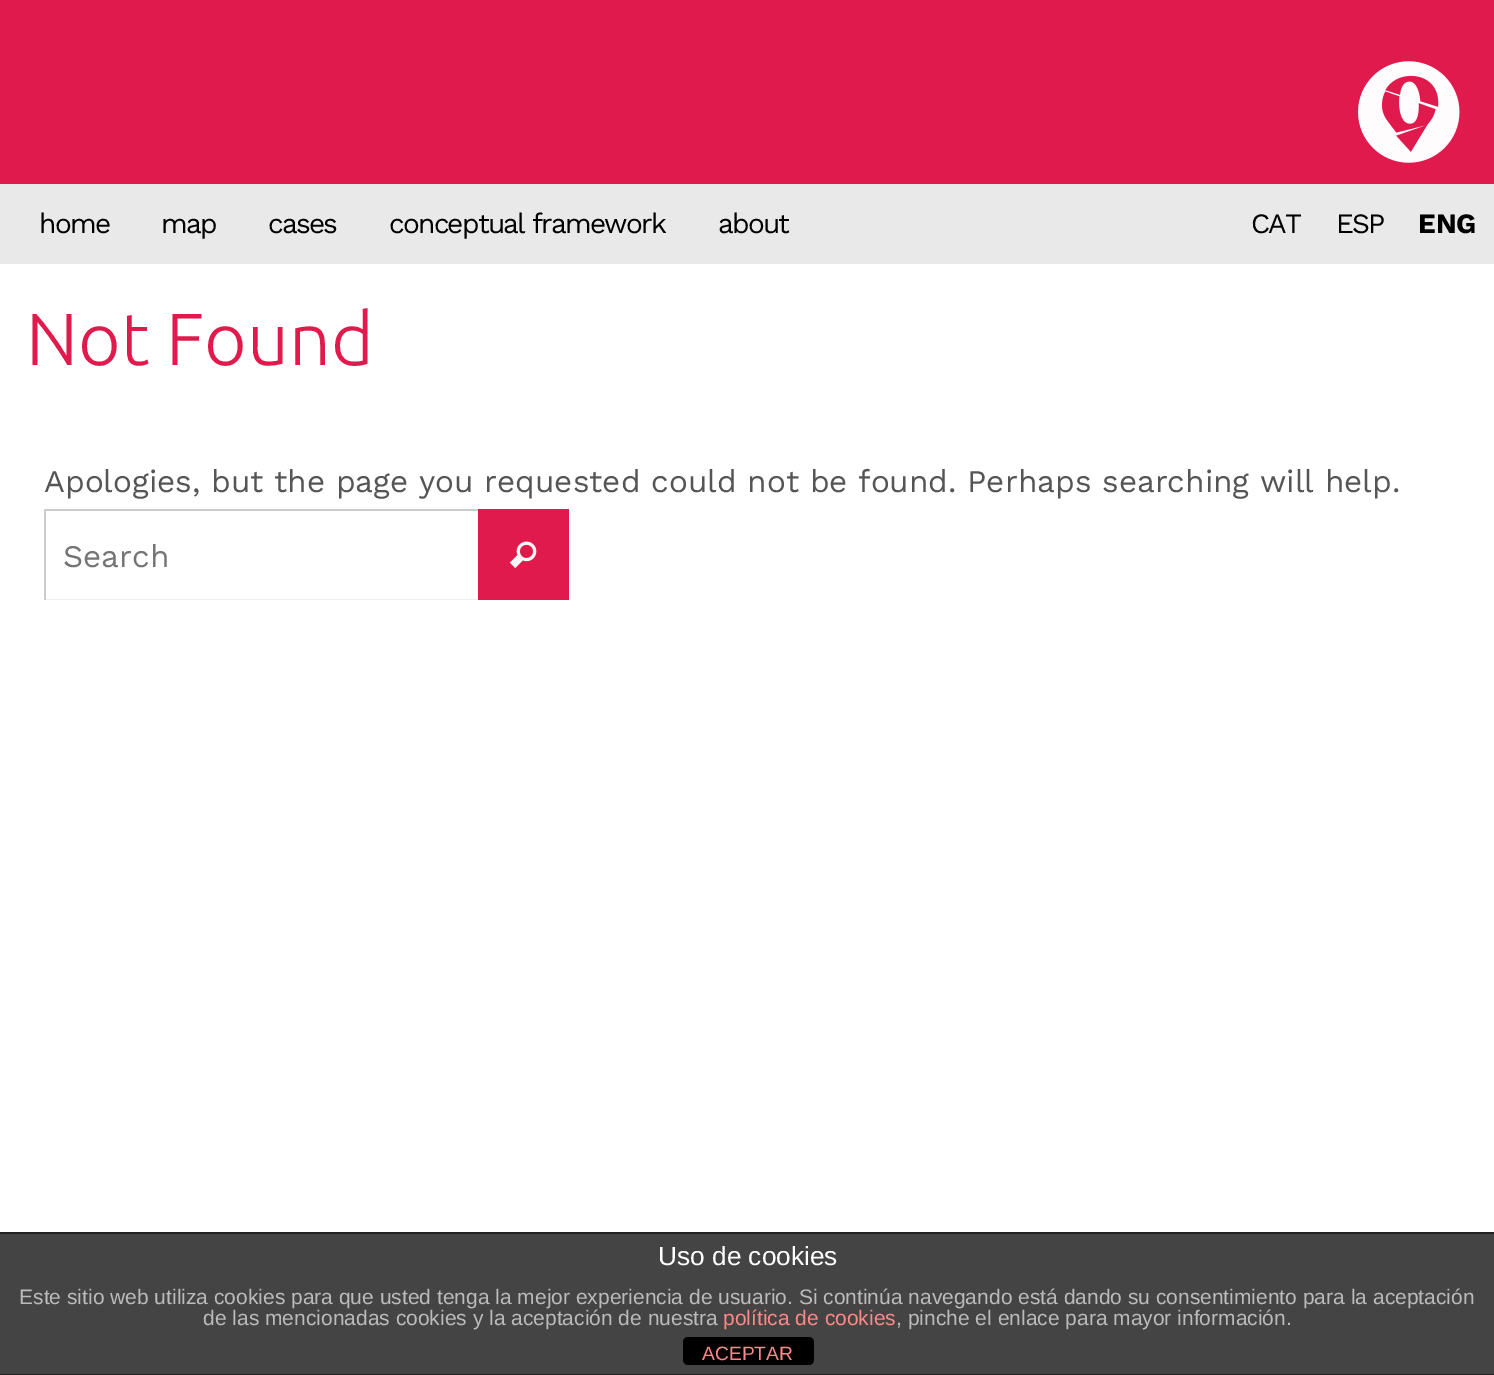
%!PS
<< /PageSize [1494 1375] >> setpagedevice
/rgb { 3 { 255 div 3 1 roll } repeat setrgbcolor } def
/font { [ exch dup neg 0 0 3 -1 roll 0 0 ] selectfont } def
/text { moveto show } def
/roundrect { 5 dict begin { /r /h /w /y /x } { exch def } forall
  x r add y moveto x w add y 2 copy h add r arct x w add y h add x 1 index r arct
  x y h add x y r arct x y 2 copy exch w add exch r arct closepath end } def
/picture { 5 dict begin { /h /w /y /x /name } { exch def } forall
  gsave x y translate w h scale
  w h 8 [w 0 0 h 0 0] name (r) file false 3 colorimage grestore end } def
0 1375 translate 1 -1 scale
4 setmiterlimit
255 255 255 rgb
0 0 1494 1375 rectfill
224 26 77 rgb
0 0 1494 184 rectfill
(img_01.rgb) 1358 61 102 102 picture
233 233 233 rgb
0 184 1494 80 rectfill
224 26 77 rgb
478 509 91 91 rectfill
204 204 204 rgb
44 509 434 2 rectfill
238 238 238 rgb
44 599 434 1 rectfill
204 204 204 rgb
44 509 2 91 rectfill
(img_02.rgb) 509 541 28 27 picture
68 68 68 rgb
0 1234 1494 140 rectfill
34 34 34 rgb
0 1232 1494 2 rectfill
0 1374 1494 1 rectfill
0 0 0 rgb
683 1337 131 28 5 roundrect fill
/WorkSans-Regular 28 font
39 233 moveto -1.75 0 (home) ashow
161 233 moveto -1.75 0 (map) ashow
268 233 moveto -1.75 0 (cases) ashow
389 233 moveto -1.75 0 (conceptual framework) ashow
718 233 moveto -1.75 0 (about) ashow
1251 233 moveto -1.75 0 (CAT) ashow
1336 233 moveto -1.75 0 (ESP) ashow
/WorkSans-Bold 28 font
(ENG) 1418 233 text
/Ubuntu-Light 73.5 font
224 26 77 rgb
(Not Found) 26 365 text
/WorkSans-Regular 31.5 font
85 85 85 rgb
(Apologies, but the page you requested could not be found. Perhaps searching will help.) 44 492 text
117 117 117 rgb
(Search) 63 567 text
/LiberationSans-Regular 26.25 font
255 255 255 rgb
(Uso de cookies) 658 1265 text
/LiberationSans-Regular 21 font
187 187 187 rgb
(Este sitio web utiliza cookies para que usted tenga la mejor experiencia de usuario. Si continúa navegando está dando su consentimiento para la aceptación) 19 1304 text
(de las mencionadas cookies y la aceptación de nuestra) 203 1325 text
255 136 136 rgb
(política de cookies) 723 1325 text
187 187 187 rgb
(, pinche el enlace para mayor información.) 896 1325 text
/LiberationSans-Regular 19.25 font
255 136 136 rgb
(ACEPTAR) 702 1360 text
showpage
